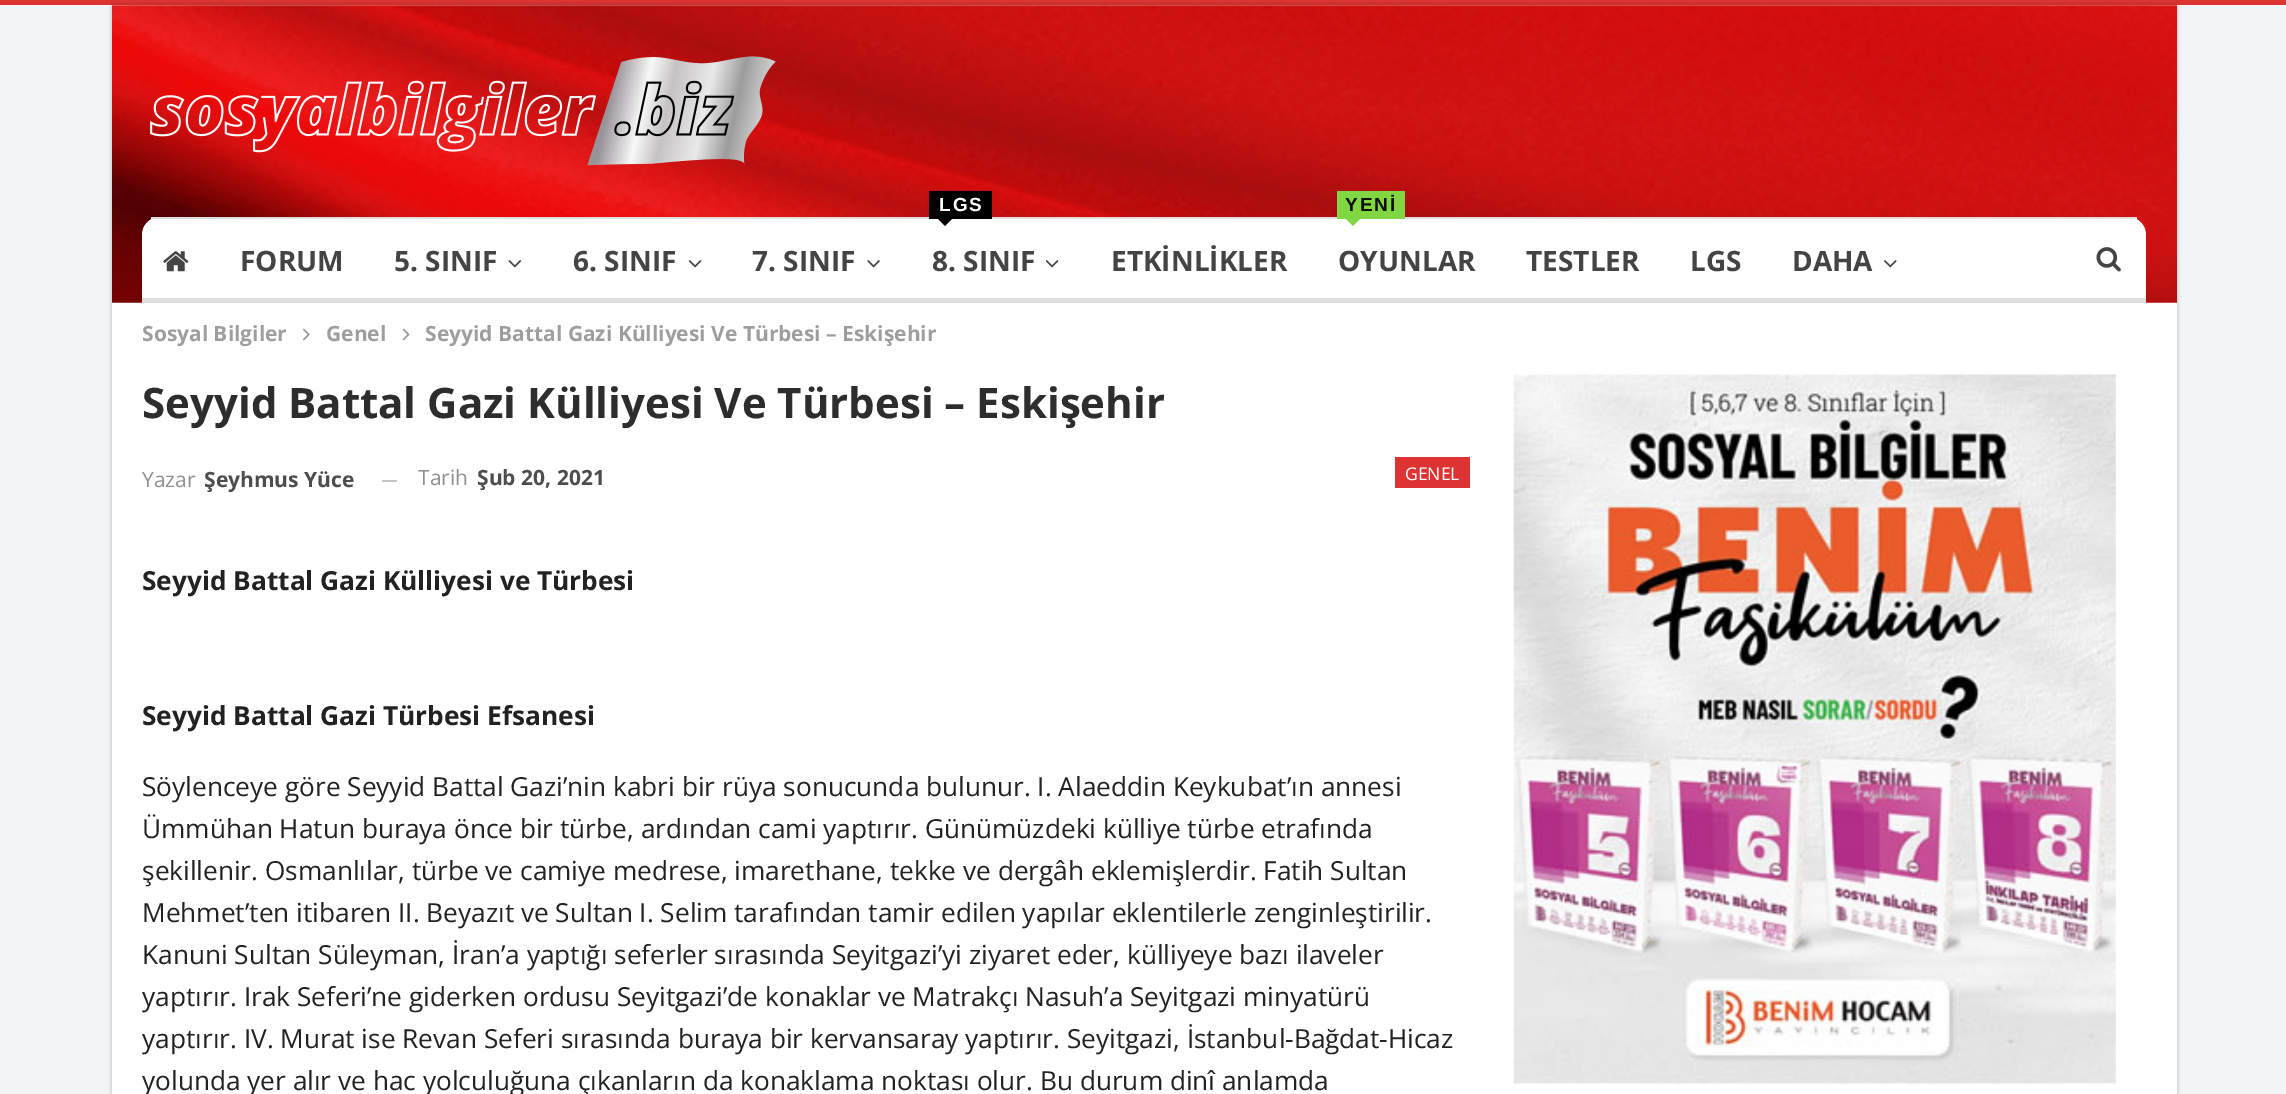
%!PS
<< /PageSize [2286 1094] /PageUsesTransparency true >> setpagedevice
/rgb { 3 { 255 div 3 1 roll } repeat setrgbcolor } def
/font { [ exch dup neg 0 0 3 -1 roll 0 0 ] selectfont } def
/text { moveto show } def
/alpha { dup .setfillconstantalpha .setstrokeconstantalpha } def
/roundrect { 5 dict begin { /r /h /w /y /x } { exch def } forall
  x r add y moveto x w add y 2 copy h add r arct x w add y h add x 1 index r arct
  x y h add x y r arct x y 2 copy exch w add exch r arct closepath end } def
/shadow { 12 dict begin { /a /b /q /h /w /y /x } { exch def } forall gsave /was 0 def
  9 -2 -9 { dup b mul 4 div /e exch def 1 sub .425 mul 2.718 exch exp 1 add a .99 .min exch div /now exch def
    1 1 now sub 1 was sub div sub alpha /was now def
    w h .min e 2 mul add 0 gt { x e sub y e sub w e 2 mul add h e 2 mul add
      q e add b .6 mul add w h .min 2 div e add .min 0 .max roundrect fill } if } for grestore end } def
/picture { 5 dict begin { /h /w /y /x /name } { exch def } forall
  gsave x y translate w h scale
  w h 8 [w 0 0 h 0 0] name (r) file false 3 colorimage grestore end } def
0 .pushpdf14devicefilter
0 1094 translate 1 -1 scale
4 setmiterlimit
243 244 246 rgb
0 0 2286 1094 rectfill
221 51 51 rgb
0 0 2286 5 rectfill
0 0 0 rgb
112 5 2065 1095 0 2 0.27 shadow
255 255 255 rgb
112 5 2065 1089 rectfill
(img_01.rgb) 112 5 2065 298 picture
(img_02.rgb) 150 56 626 110 picture
160 217 moveto 1968 0 rlineto 10 0 18 8 18 18 rcurveto 0 68 rlineto -2004 0 rlineto 0 -68 rlineto 0 -10 8 -18 18 -18 rcurveto closepath fill
222 222 222 rgb
151 217 1986 2 rectfill
142 298 2004 5 rectfill
(img_03.rgb) 163 251 26 21 picture
(img_04.rgb) 508 260 14 8 picture
(img_05.rgb) 688 260 14 8 picture
(img_06.rgb) 867 260 13 8 picture
0 0 0 rgb
929 191 63 28 rectfill
938 219 moveto 14 0 rlineto -7 7 rlineto closepath fill
(img_05.rgb) 1045 260 14 8 picture
129 215 66 rgb
1337 191 68 28 rectfill
1346 219 moveto 14 0 rlineto -7 7 rlineto closepath fill
(img_07.rgb) 1884 260 13 8 picture
(img_08.rgb) 2096 247 25 25 picture
(img_09.rgb) 303 328 7 13 picture
(img_10.rgb) 402 328 8 13 picture
196 196 196 rgb
382 480 15 2 rectfill
221 51 51 rgb
1395 457 75 31 rectfill
(img_11.rgb) 1513 374 603 711 picture
/OpenSans-Bold 28 font
68 68 68 rgb
(FORUM) 240 271 text
(5. SINIF) 394 271 text
(6. SINIF) 573 271 text
(7. SINIF) 752 271 text
/LiberationSans-Bold 19 font
255 255 255 rgb
939 211 moveto 2 0 (LGS) ashow
/OpenSans-Bold 28 font
68 68 68 rgb
(8. SINIF) 932 271 text
(ETKİNLİKLER) 1111 271 text
/LiberationSans-Bold 19 font
15 15 15 rgb
1345 211 moveto 2 0 (YENİ) ashow
/OpenSans-Bold 28 font
68 68 68 rgb
(OYUNLAR) 1338 271 text
(TESTLER) 1526 271 text
(LGS) 1690 271 text
(DAHA) 1792 271 text
/OpenSans-Bold 21 font
158 158 158 rgb
(Sosyal Bilgiler) 142 341 text
(Genel) 326 341 text
(Seyyid Battal Gazi Külliyesi Ve Türbesi – Eskişehir) 425 341 text
/OpenSans-Bold 42 font
45 45 45 rgb
(Seyyid Battal Gazi Külliyesi Ve Türbesi – Eskişehir) 142 418 text
/OpenSans-Regular 21 font
143 143 143 rgb
(Yazar) 142 487 text
/OpenSans-Bold 21 font
77 77 77 rgb
(Şeyhmus Yüce) 204 487 text
/OpenSans-Regular 21 font
143 143 143 rgb
(Tarih) 418 485 text
/OpenSans-Bold 21 font
77 77 77 rgb
(Şub 20, 2021) 477 485 text
/OpenSans-Regular 17.5 font
255 255 255 rgb
(GENEL) 1405 480 text
/OpenSans-Bold 26.25 font
34 34 34 rgb
(Seyyid Battal Gazi Külliyesi ve Türbesi) 142 590 text
(Seyyid Battal Gazi Türbesi Efsanesi) 142 725 text
/OpenSans-Regular 26.25 font
(Söylenceye göre Seyyid Battal Gazi’nin kabri bir rüya sonucunda bulunur. I. Alaeddin Keykubat’ın annesi) 142 796 text
(Ümmühan Hatun buraya önce bir türbe, ardından cami yaptırır. Günümüzdeki külliye türbe etrafında) 142 838 text
(şekillenir. Osmanlılar, türbe ve camiye medrese, imarethane, tekke ve dergâh eklemişlerdir. Fatih Sultan) 142 880 text
(Mehmet’ten itibaren II. Beyazıt ve Sultan I. Selim tarafından tamir edilen yapılar eklentilerle zenginleştirilir.) 142 922 text
(Kanuni Sultan Süleyman, İran’a yaptığı seferler sırasında Seyitgazi’yi ziyaret eder, külliyeye bazı ilaveler) 142 964 text
(yaptırır. Irak Seferi’ne giderken ordusu Seyitgazi’de konaklar ve Matrakçı Nasuh’a Seyitgazi minyatürü) 142 1006 text
(yaptırır. IV. Murat ise Revan Seferi sırasında buraya bir kervansaray yaptırır. Seyitgazi, İstanbul-Bağdat-Hicaz) 142 1048 text
(yolunda yer alır ve hac yolculuğuna çıkanların da konaklama noktası olur. Bu durum dinî anlamda) 142 1090 text
.poppdf14devicefilter showpage
